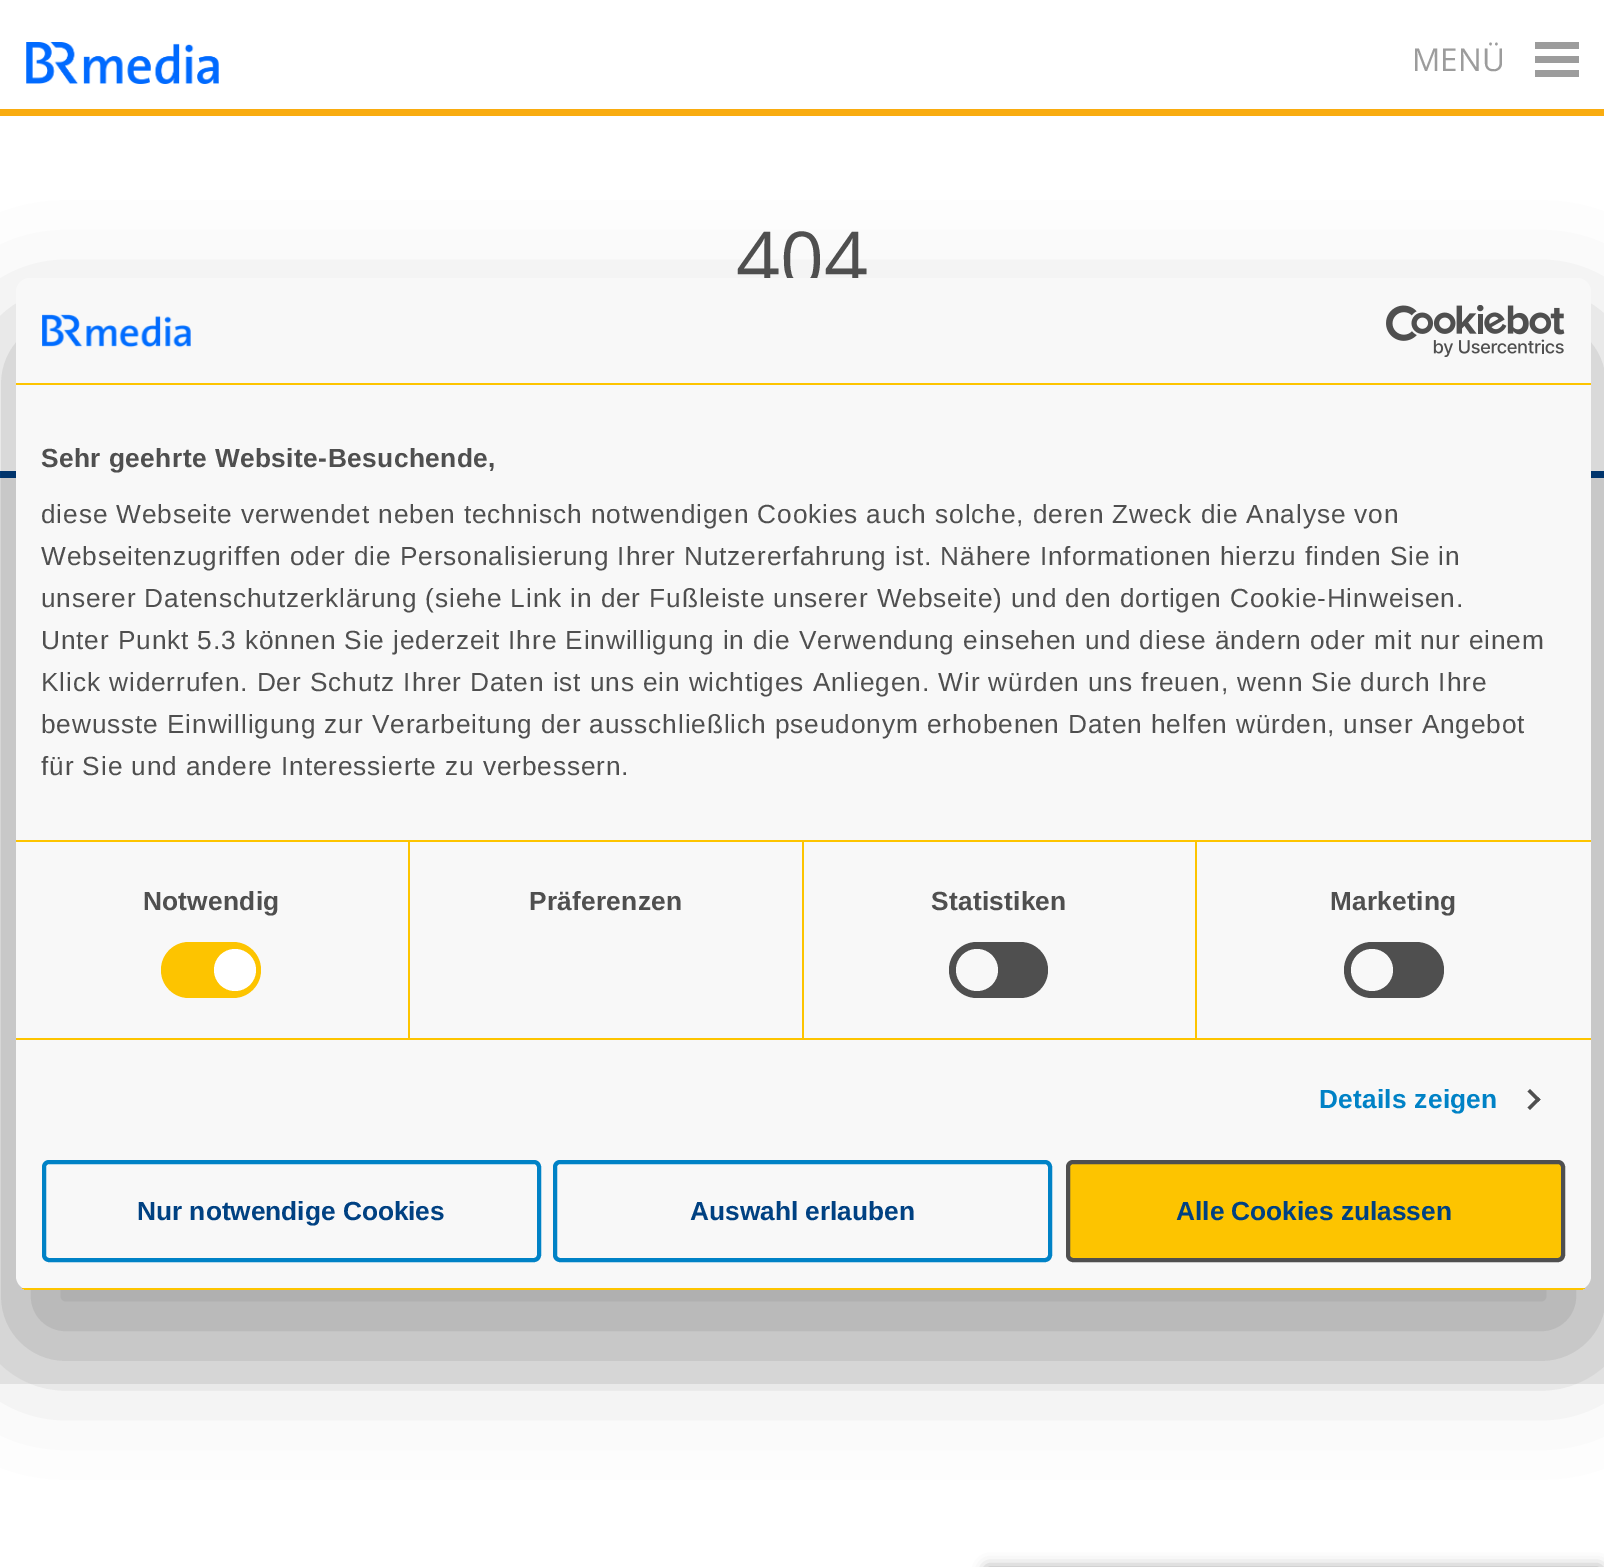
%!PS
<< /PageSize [1604 1567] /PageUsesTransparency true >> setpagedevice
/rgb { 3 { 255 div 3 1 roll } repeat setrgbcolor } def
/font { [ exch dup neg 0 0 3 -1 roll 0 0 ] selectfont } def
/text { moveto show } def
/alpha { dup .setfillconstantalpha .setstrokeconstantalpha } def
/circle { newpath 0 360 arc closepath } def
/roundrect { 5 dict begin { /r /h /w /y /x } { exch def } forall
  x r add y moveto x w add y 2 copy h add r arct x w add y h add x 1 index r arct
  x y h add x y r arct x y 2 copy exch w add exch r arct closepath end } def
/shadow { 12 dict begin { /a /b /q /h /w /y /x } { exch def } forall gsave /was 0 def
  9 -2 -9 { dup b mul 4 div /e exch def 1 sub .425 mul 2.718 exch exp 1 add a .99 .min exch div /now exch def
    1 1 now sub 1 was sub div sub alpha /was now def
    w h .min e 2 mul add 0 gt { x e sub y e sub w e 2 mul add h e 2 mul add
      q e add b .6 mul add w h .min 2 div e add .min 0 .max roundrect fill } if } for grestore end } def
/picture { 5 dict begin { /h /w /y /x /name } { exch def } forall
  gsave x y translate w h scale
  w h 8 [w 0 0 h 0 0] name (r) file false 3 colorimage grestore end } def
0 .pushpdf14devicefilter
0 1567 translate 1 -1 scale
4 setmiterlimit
255 255 255 rgb
0 0 1604 1567 rectfill
249 172 16 rgb
0 109 1604 7 rectfill
(img_01.rgb) 26 42 193 42 picture
156 156 156 rgb
1535 42 44 7 rectfill
1535 56 44 7 rectfill
1535 70 44 7 rectfill
235 235 235 rgb
0 478 1604 906 rectfill
0 61 127 rgb
0 471 1604 7 rectfill
0 0 0 rgb
16 334 1575 1012 14 59.5 0.3 shadow
987 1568 613 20 0 7 0.4 shadow
/OpenSans-Regular 31.5 font
156 156 156 rgb
(MENÜ) 1412 71 text
/OpenSans-Regular 77 font
79 79 79 rgb
(404) 736 287 text
248 248 248 rgb
16 278 1575 1012 14 roundrect fill
253 196 0 rgb
16 383 1575 2 rectfill
(img_02.rgb) 42 314 149 34 picture
(img_03.rgb) 1386 305 179 52 picture
16 840 1575 2 rectfill
/LiberationSans-Bold 26.25 font
79 79 79 rgb
41 467 moveto 0.45 0 (Sehr geehrte Website-Besuchende,) ashow
/LiberationSans-Regular 26.25 font
41 523 moveto 0.88 0 (diese Webseite verwendet neben technisch notwendigen Cookies auch solche, deren Zweck die Analyse von) ashow
41 565 moveto 0.88 0 (Webseitenzugriffen oder die Personalisierung Ihrer Nutzererfahrung ist. Nähere Informationen hierzu finden Sie in) ashow
41 607 moveto 0.88 0 (unserer Datenschutzerklärung \(siehe Link in der Fußleiste unserer Webseite\) und den dortigen Cookie-Hinweisen.) ashow
41 649 moveto 0.88 0 (Unter Punkt 5.3 können Sie jederzeit Ihre Einwilligung in die Verwendung einsehen und diese ändern oder mit nur einem) ashow
41 691 moveto 0.88 0 (Klick widerrufen. Der Schutz Ihrer Daten ist uns ein wichtiges Anliegen. Wir würden uns freuen, wenn Sie durch Ihre) ashow
41 733 moveto 0.88 0 (bewusste Einwilligung zur Verarbeitung der ausschließlich pseudonym erhobenen Daten helfen würden, unser Angebot) ashow
41 775 moveto 0.88 0 (für Sie und andere Interessierte zu verbessern.) ashow
253 196 0 rgb
16 1038 1575 2 rectfill
408 842 2 196 rectfill
/LiberationSans-Bold 26.25 font
79 79 79 rgb
143 910 moveto 0.25 0 (Notwendig) ashow
253 196 0 rgb
161 942 100 56 28 roundrect fill
255 255 255 rgb
235 970 21 circle fill
253 196 0 rgb
802 842 2 196 rectfill
79 79 79 rgb
529 910 moveto 0.25 0 (Präferenzen) ashow
253 196 0 rgb
1195 842 2 196 rectfill
79 79 79 rgb
931 910 moveto 0.25 0 (Statistiken) ashow
949 942 99 56 28 roundrect fill
248 248 248 rgb
977 970 21 circle fill
79 79 79 rgb
1330 910 moveto 0.25 0 (Marketing) ashow
1344 942 100 56 28 roundrect fill
248 248 248 rgb
1372 970 21 circle fill
0 130 198 rgb
1319 1108 moveto 0.25 0 (Details zeigen) ashow
79 79 79 rgb
1530 1089 moveto 10.5 10.5 rlineto -2.5 2.5 rlineto -10.5 -10.5 rlineto closepath fill
1538 1097 moveto 2.5 2.5 rlineto -10.5 10.5 rlineto -2.5 -2.5 rlineto closepath fill
gsave
16 278 1575 1012 14 roundrect clip newpath
253 196 0 rgb
16 1288 1575 2 rectfill
grestore
0 130 198 rgb
4 setlinewidth
44 1162 495 98 5 roundrect stroke
0 65 130 rgb
(Nur notwendige Cookies) 137 1220 text
0 130 198 rgb
555 1162 495 98 5 roundrect stroke
0 65 130 rgb
(Auswahl erlauben) 690 1220 text
253 196 0 rgb
1068 1162 495 98 5 roundrect gsave fill grestore
79 79 79 rgb
stroke
0 65 130 rgb
(Alle Cookies zulassen) 1176 1220 text
.poppdf14devicefilter showpage
